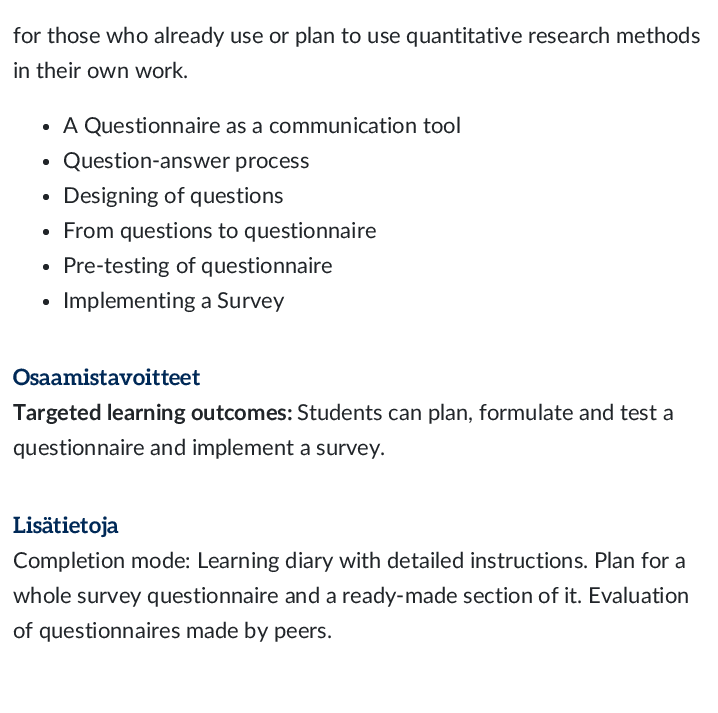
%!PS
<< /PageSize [718 713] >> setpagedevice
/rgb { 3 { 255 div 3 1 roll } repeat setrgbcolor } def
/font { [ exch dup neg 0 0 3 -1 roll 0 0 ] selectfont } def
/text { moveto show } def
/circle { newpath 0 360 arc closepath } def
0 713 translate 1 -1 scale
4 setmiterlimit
255 255 255 rgb
0 0 718 713 rectfill
33 37 41 rgb
46 127 3 circle fill
46 162 3 circle fill
46 197 3 circle fill
46 232 3 circle fill
46 267 3 circle fill
46 302 3 circle fill
/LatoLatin-Regular 22 font
(for those who already use or plan to use quantitative research methods) 13 43 text
(in their own work.) 13 78 text
(A Questionnaire as a communication tool) 63 133 text
(Question-answer process) 63 168 text
(Designing of questions) 63 203 text
(From questions to questionnaire) 63 238 text
(Pre-testing of questionnaire) 63 273 text
(Implementing a Survey) 63 308 text
/Aleo-Bold 22.5 font
0 41 87 rgb
(Osaamistavoitteet) 13 385 text
/LatoLatin-Bold 22 font
33 37 41 rgb
(Targeted learning outcomes:) 13 420 text
/LatoLatin-Regular 22 font
(Students can plan, formulate and test a) 297 420 text
(questionnaire and implement a survey.) 13 455 text
/Aleo-Bold 22.5 font
0 41 87 rgb
(Lisätietoja) 13 533 text
/LatoLatin-Regular 22 font
33 37 41 rgb
(Completion mode: Learning diary with detailed instructions. Plan for a) 13 568 text
(whole survey questionnaire and a ready-made section of it. Evaluation) 13 603 text
(of questionnaires made by peers.) 13 638 text
showpage
